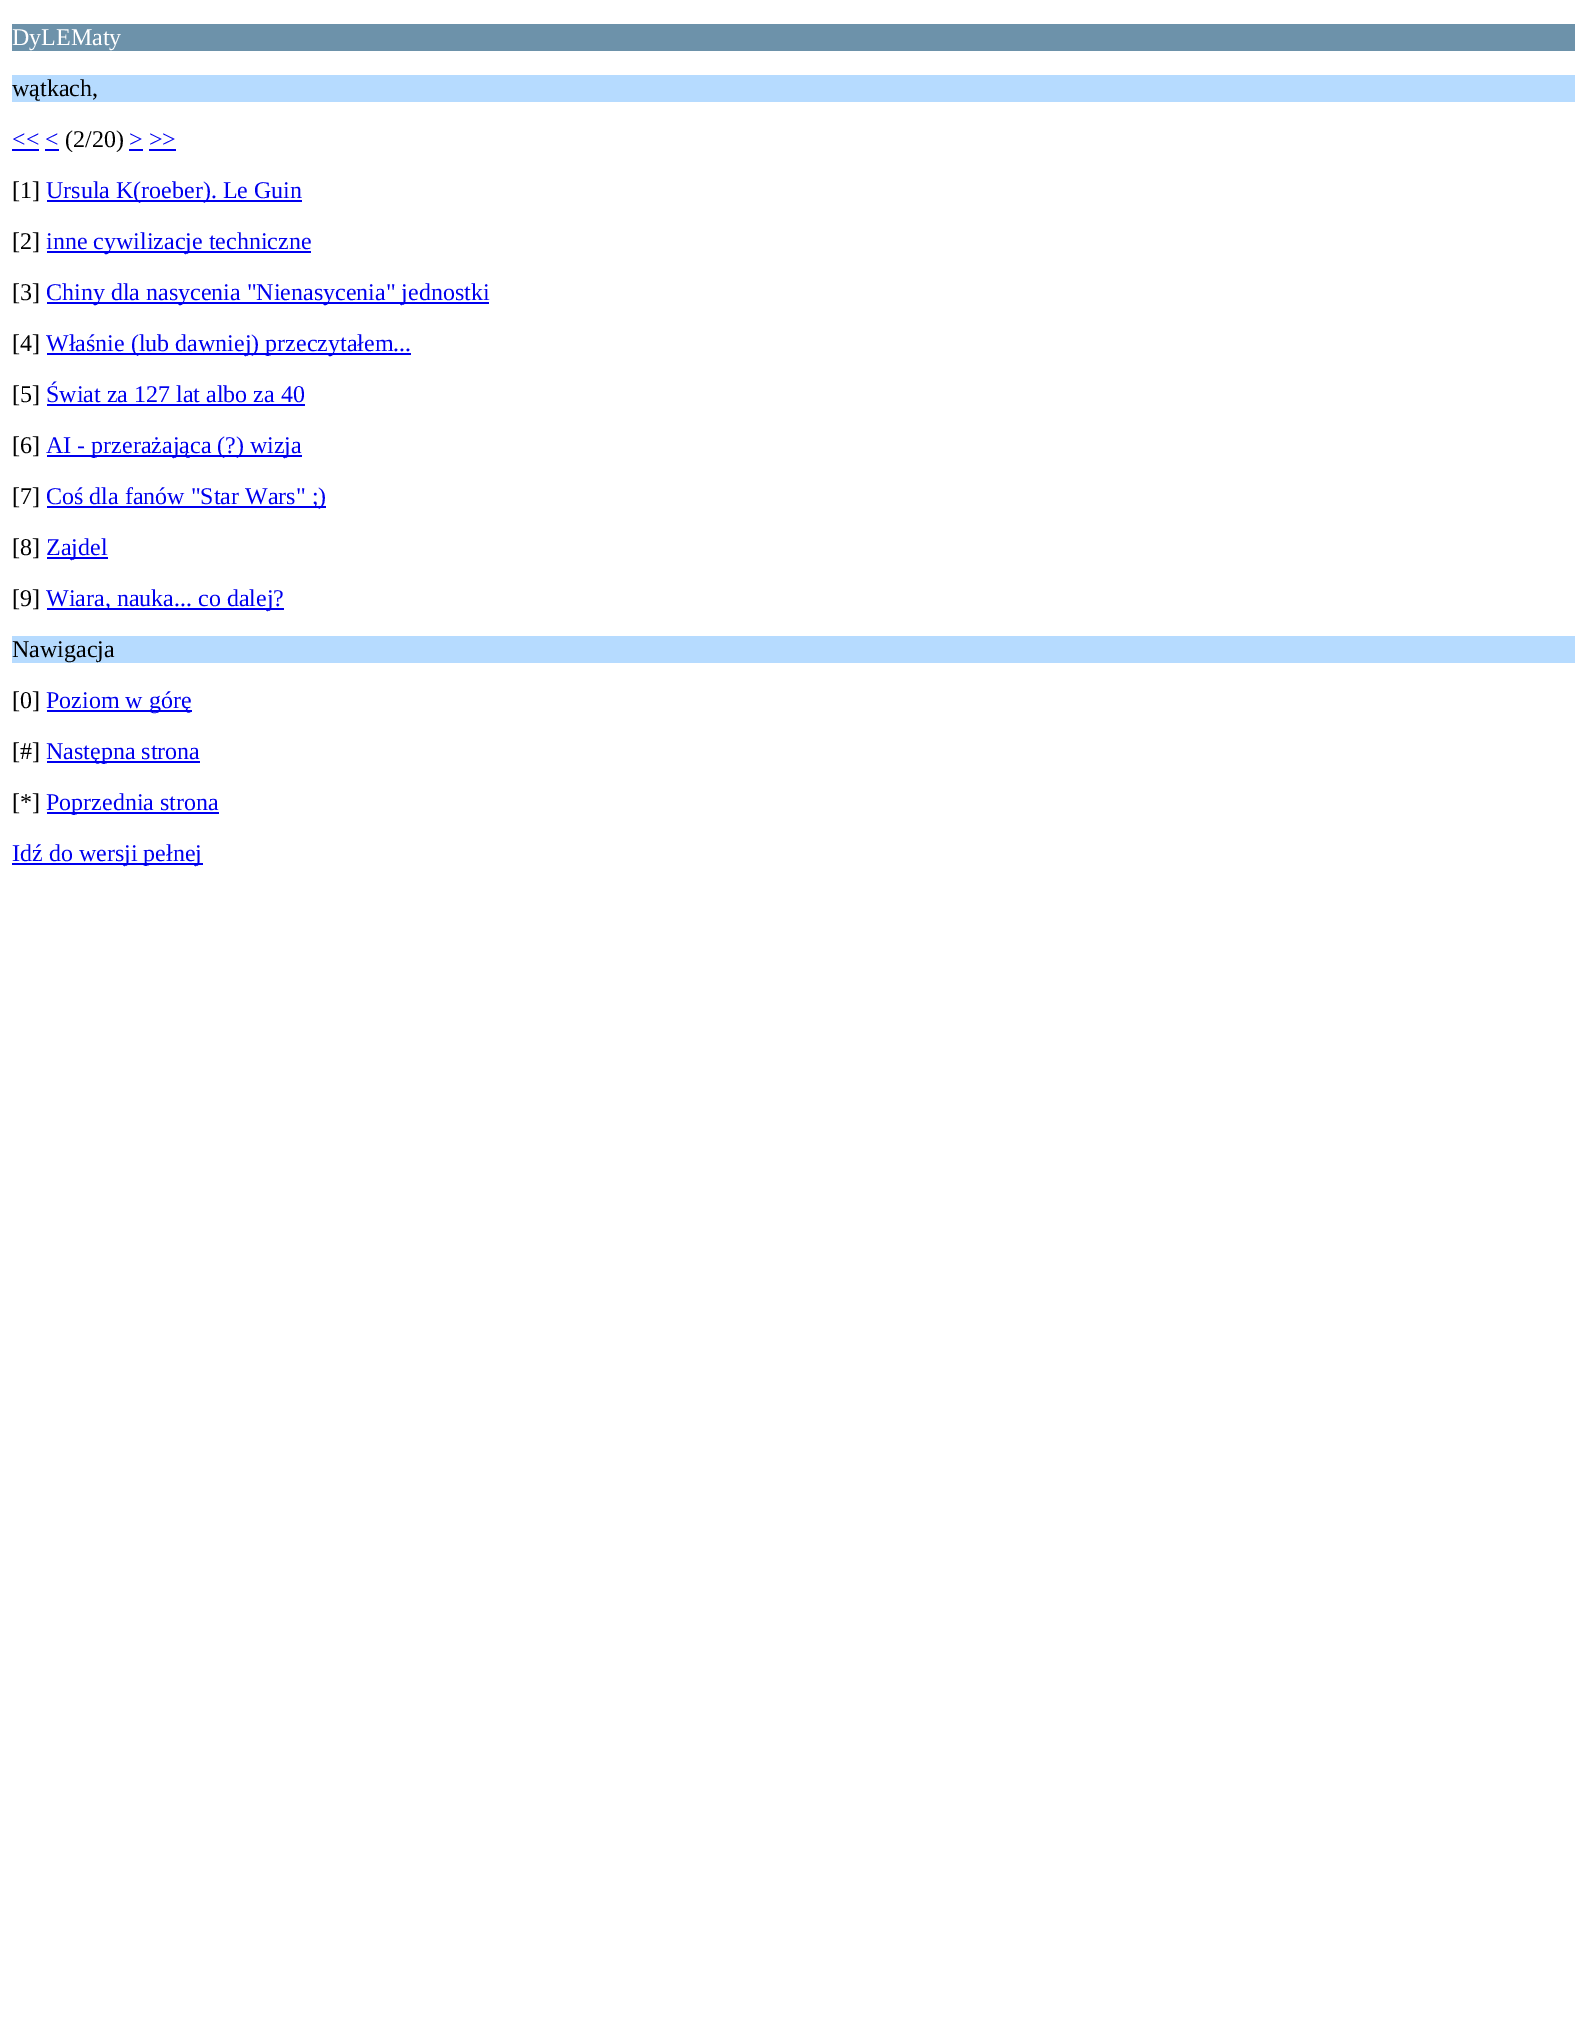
%!PS
<< /PageSize [1586 2018] >> setpagedevice
/rgb { 3 { 255 div 3 1 roll } repeat setrgbcolor } def
/font { [ exch dup neg 0 0 3 -1 roll 0 0 ] selectfont } def
/text { moveto show } def
0 2018 translate 1 -1 scale
4 setmiterlimit
255 255 255 rgb
0 0 1586 2018 rectfill
109 146 170 rgb
12 24 1563 27 rectfill
182 219 255 rgb
12 75 1563 27 rectfill
0 0 238 rgb
12 149 27 2 rectfill
129 149 14 2 rectfill
45 149 14 2 rectfill
149 149 27 2 rectfill
47 200 255 2 rectfill
47 251 264 2 rectfill
47 302 442 2 rectfill
47 353 364 2 rectfill
47 404 258 2 rectfill
47 455 255 2 rectfill
47 506 279 2 rectfill
47 557 61 2 rectfill
47 608 237 2 rectfill
182 219 255 rgb
12 636 1563 27 rectfill
0 0 238 rgb
47 710 145 2 rectfill
47 761 153 2 rectfill
47 812 172 2 rectfill
12 863 191 2 rectfill
/LiberationSerif-Regular 24 font
255 255 255 rgb
(DyLEMaty) 12 45 text
0 0 0 rgb
(wątkach,) 12 96 text
0 0 238 rgb
(<< <) 12 147 text
0 0 0 rgb
(\(2/20\)) 65 147 text
0 0 238 rgb
(> >>) 129 147 text
0 0 0 rgb
([1]) 12 198 text
0 0 238 rgb
(Ursula K\(roeber\). Le Guin) 46 198 text
0 0 0 rgb
([2]) 12 249 text
0 0 238 rgb
(inne cywilizacje techniczne) 46 249 text
0 0 0 rgb
([3]) 12 300 text
0 0 238 rgb
(Chiny dla nasycenia "Nienasycenia" jednostki) 46 300 text
0 0 0 rgb
([4]) 12 351 text
0 0 238 rgb
(Właśnie \(lub dawniej\) przeczytałem...) 46 351 text
0 0 0 rgb
([5]) 12 402 text
0 0 238 rgb
(Świat za 127 lat albo za 40) 46 402 text
0 0 0 rgb
([6]) 12 453 text
0 0 238 rgb
(AI - przerażająca \(?\) wizja) 46 453 text
0 0 0 rgb
([7]) 12 504 text
0 0 238 rgb
(Coś dla fanów "Star Wars" ;\)) 46 504 text
0 0 0 rgb
([8]) 12 555 text
0 0 238 rgb
(Zajdel) 46 555 text
0 0 0 rgb
([9]) 12 606 text
0 0 238 rgb
(Wiara, nauka... co dalej?) 46 606 text
0 0 0 rgb
(Nawigacja) 12 657 text
([0]) 12 708 text
0 0 238 rgb
(Poziom w górę) 46 708 text
0 0 0 rgb
([#]) 12 759 text
0 0 238 rgb
(Następna strona) 46 759 text
0 0 0 rgb
([*]) 12 810 text
0 0 238 rgb
(Poprzednia strona) 46 810 text
(Idź do wersji pełnej) 12 861 text
showpage
